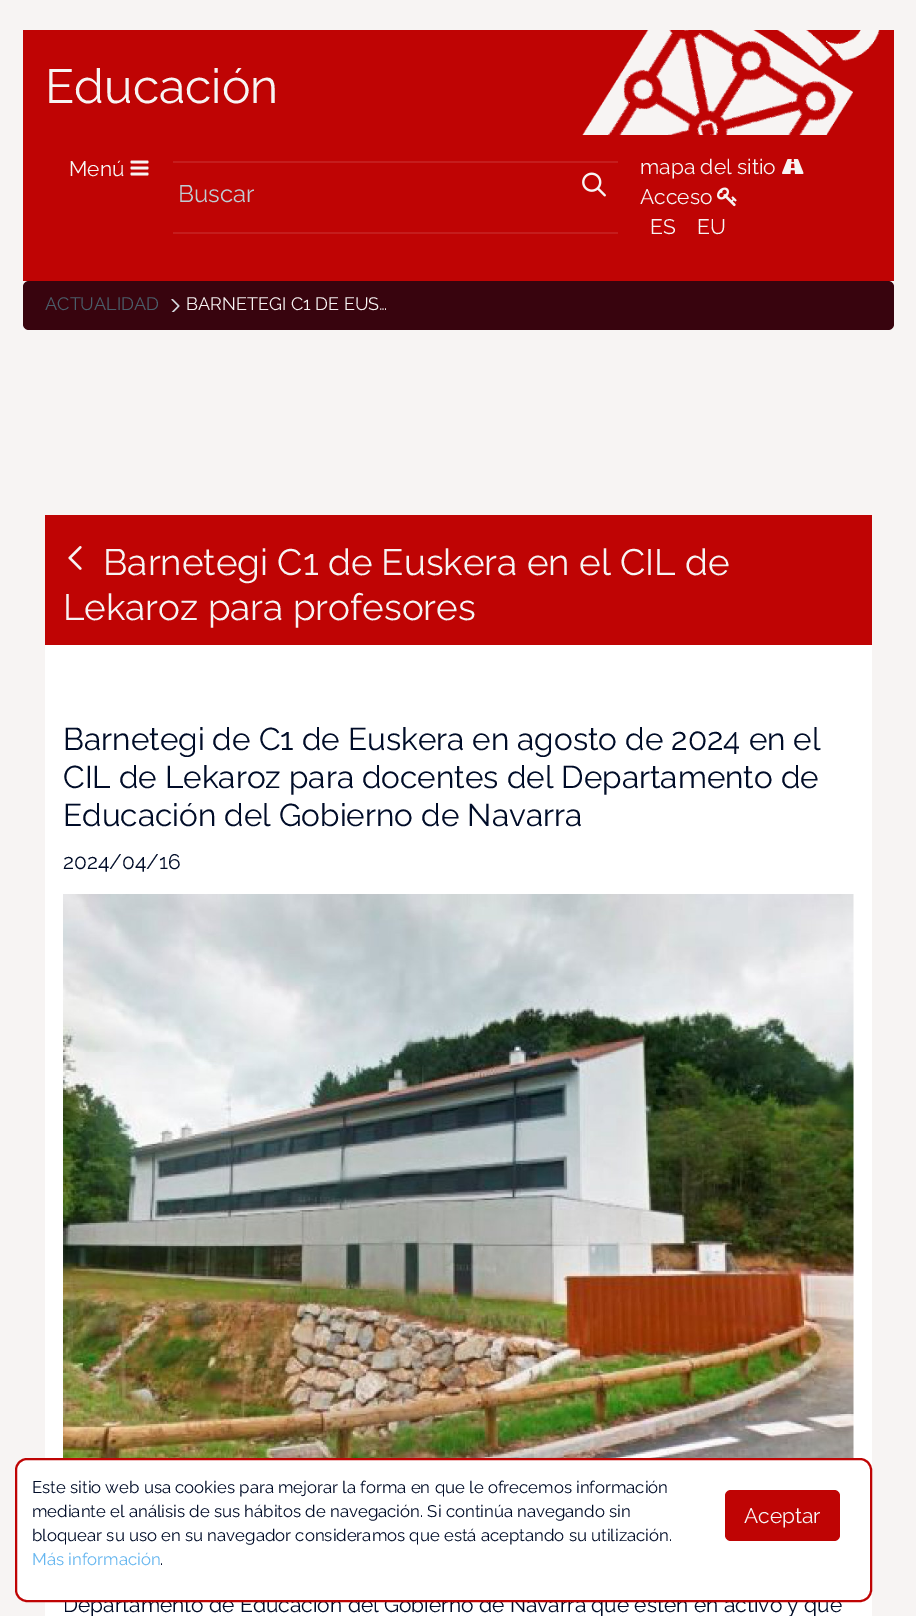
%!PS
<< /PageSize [916 1616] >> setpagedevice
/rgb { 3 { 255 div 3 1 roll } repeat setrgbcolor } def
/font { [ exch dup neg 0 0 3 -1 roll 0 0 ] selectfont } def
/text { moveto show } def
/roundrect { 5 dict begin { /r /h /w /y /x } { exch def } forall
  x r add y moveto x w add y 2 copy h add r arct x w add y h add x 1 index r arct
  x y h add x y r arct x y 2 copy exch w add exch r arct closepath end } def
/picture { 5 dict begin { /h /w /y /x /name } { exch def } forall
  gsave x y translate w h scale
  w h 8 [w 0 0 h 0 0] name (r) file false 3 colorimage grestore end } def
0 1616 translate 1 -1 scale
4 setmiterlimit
247 244 243 rgb
0 0 916 1616 rectfill
191 4 4 rgb
23 30 871 251 rectfill
(img_01.rgb) 582 30 298 105 picture
(img_02.rgb) 130 160 19 16 picture
(img_03.rgb) 782 159 22 15 picture
197 29 29 rgb
173 232 445 2 rectfill
173 161 445 2 rectfill
(img_04.rgb) 582 172 24 25 picture
(img_05.rgb) 717 187 20 20 picture
56 4 14 rgb
23 281 871 49 6 roundrect fill
(img_06.rgb) 171 299 9 13 picture
255 255 255 rgb
45 645 827 971 rectfill
191 4 4 rgb
45 515 827 130 rectfill
(img_07.rgb) 68 546 14 24 picture
(img_08.rgb) 63 894 791 564 picture
/Raleway-Thin 48 font
247 244 243 rgb
(Educación) 45 103 text
/Raleway-Thin 21 font
(Menú) 69 176 text
(mapa del sitio) 640 174 text
/Raleway-Thin 24 font
192 204 211 rgb
(Buscar) 178 202 text
/Raleway-Thin 21 font
247 244 243 rgb
(Acceso) 640 204 text
(ES) 650 234 text
(EU) 697 234 text
/Raleway-Thin 18 font
74 94 106 rgb
(ACTUALIDAD) 45 310 text
247 244 243 rgb
(BARNETEGI C1 DE EUS…) 186 310 text
/Raleway-Thin 36.75 font
(Barnetegi C1 de Euskera en el CIL de) 103 575 text
(Lekaroz para profesores) 63 620 text
/Raleway-Thin 31.5 font
0 12 40 rgb
(Barnetegi de C1 de Euskera en agosto de 2024 en el) 63 750 text
(CIL de Lekaroz para docentes del Departamento de) 63 788 text
(Educación del Gobierno de Navarra) 63 826 text
/Raleway-Thin 21 font
(2024/04/16) 63 869 text
(Departamento de Educación del Gobierno de Navarra que estén en activo y que) 63 1612 text
255 255 255 rgb
16 1459 855 142 11 roundrect gsave fill grestore
191 4 4 rgb
2 setlinewidth
stroke
/Raleway-Thin 16.8 font
0 12 40 rgb
(Este sitio web usa cookies para mejorar la forma en que le ofrecemos información) 32 1493 text
(mediante el análisis de sus hábitos de navegación. Si continúa navegando sin) 32 1517 text
(bloquear su uso en su navegador consideramos que está aceptando su utilización.) 32 1541 text
101 182 240 rgb
(Más información) 32 1565 text
0 12 40 rgb
(.) 160 1565 text
191 4 4 rgb
725 1490 115 51 6 roundrect fill
/Raleway-Thin 21 font
247 244 243 rgb
(Aceptar) 744 1523 text
showpage
